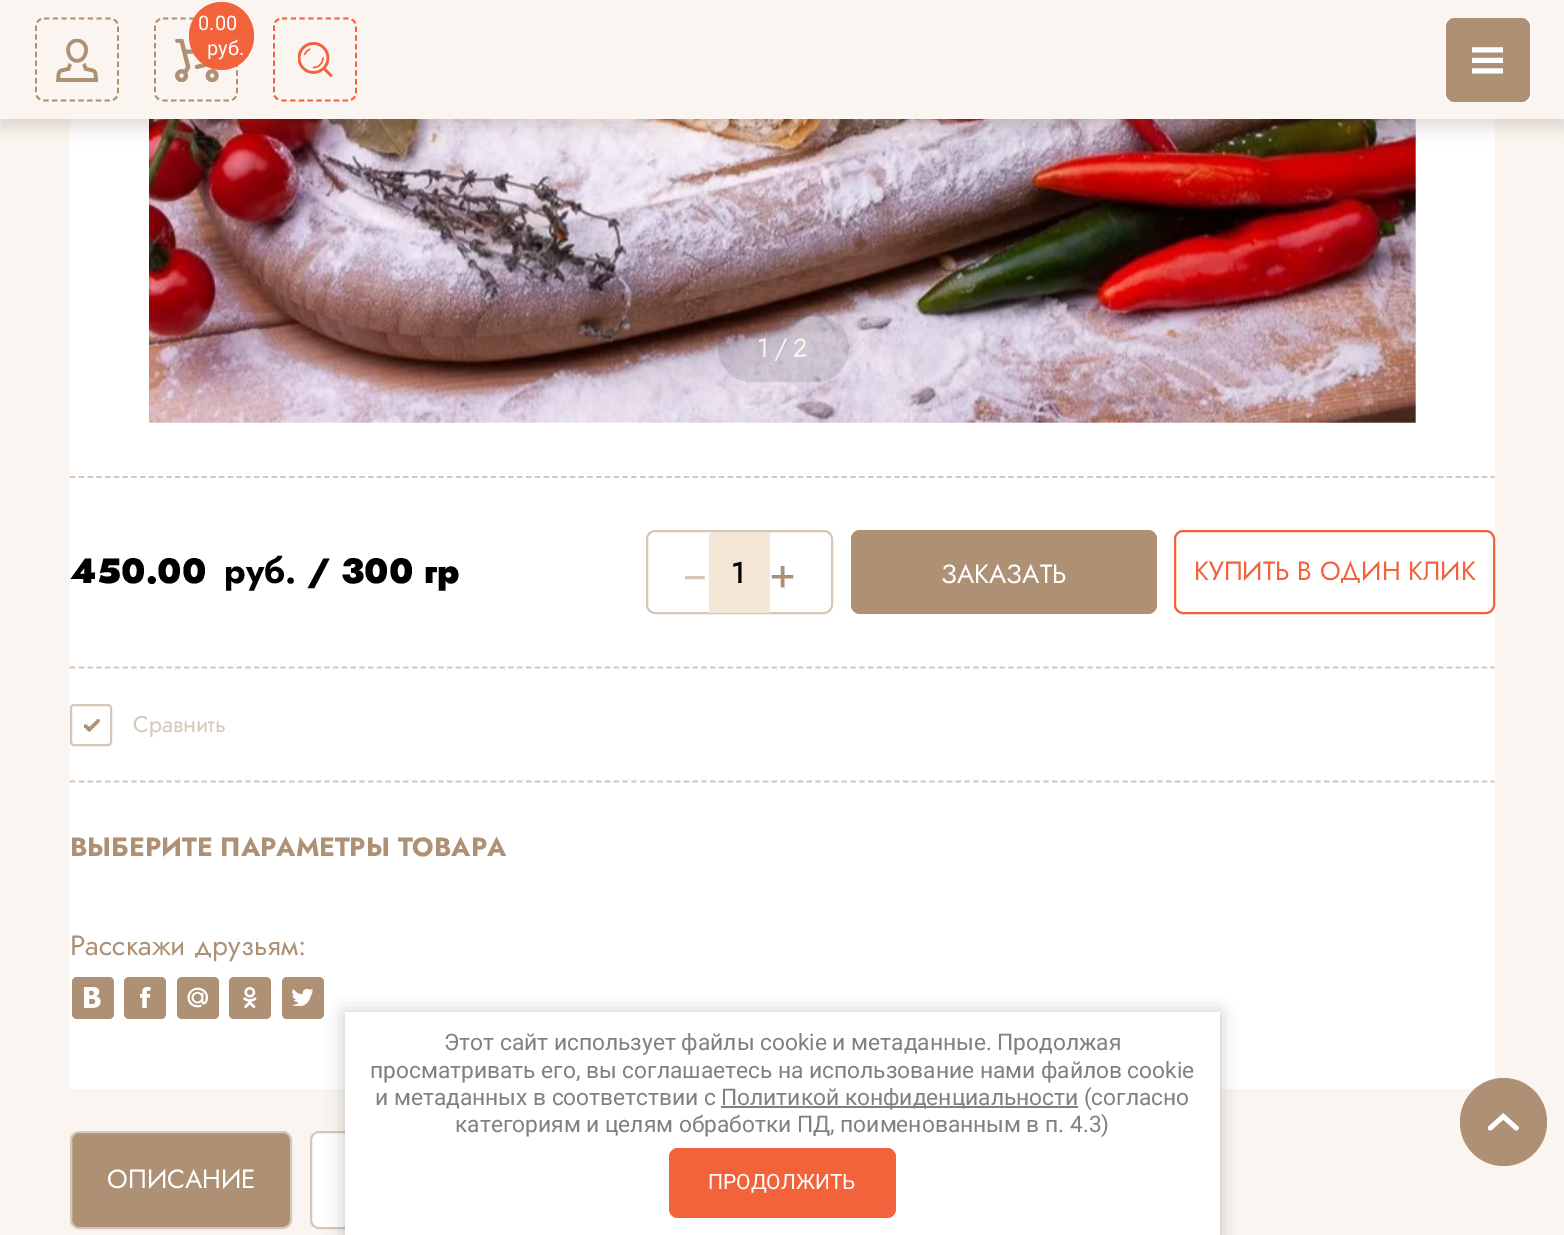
%!PS
<< /PageSize [1564 1235] /PageUsesTransparency true >> setpagedevice
/rgb { 3 { 255 div 3 1 roll } repeat setrgbcolor } def
/font { [ exch dup neg 0 0 3 -1 roll 0 0 ] selectfont } def
/text { moveto show } def
/alpha { dup .setfillconstantalpha .setstrokeconstantalpha } def
/roundrect { 5 dict begin { /r /h /w /y /x } { exch def } forall
  x r add y moveto x w add y 2 copy h add r arct x w add y h add x 1 index r arct
  x y h add x y r arct x y 2 copy exch w add exch r arct closepath end } def
/shadow { 12 dict begin { /a /b /q /h /w /y /x } { exch def } forall gsave /was 0 def
  9 -2 -9 { dup b mul 4 div /e exch def 1 sub .425 mul 2.718 exch exp 1 add a .99 .min exch div /now exch def
    1 1 now sub 1 was sub div sub alpha /was now def
    w h .min e 2 mul add 0 gt { x e sub y e sub w e 2 mul add h e 2 mul add
      q e add b .6 mul add w h .min 2 div e add .min 0 .max roundrect fill } if } for grestore end } def
/picture { 5 dict begin { /h /w /y /x /name } { exch def } forall
  gsave x y translate w h scale
  w h 8 [w 0 0 h 0 0] name (r) file false 3 colorimage grestore end } def
0 .pushpdf14devicefilter
0 1235 translate 1 -1 scale
4 setmiterlimit
250 245 241 rgb
0 0 1564 1235 rectfill
255 255 255 rgb
70 119 1425 970 rectfill
(img_05.rgb) 149 119 1267 304 picture
88 60 33 rgb
0 7 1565 119 0 9 0.2 shadow
250 245 241 rgb
0 0 1564 119 rectfill
174 145 116 rgb
1.8 setlinewidth
[5.25 3.5] 0 setdash
44 18.5 moveto 66 0 rlineto 4.5 0 8 3.5 8 7.5 rcurveto 0 67 rlineto 0 4 -3.5 7.5 -8 7.5 rcurveto -66 0 rlineto -4.5 0 -8 -3.5 -8 -7.5 rcurveto 0 -67 rlineto 0 -4 3.5 -7.5 8 -7.5 rcurveto closepath stroke
(img_01.rgb) 56 39 42 43 picture
163 18.5 moveto 66 0 rlineto 4.5 0 8 3.5 8 7.5 rcurveto 0 67 rlineto 0 4 -3.5 7.5 -8 7.5 rcurveto -66 0 rlineto -4.5 0 -8 -3.5 -8 -7.5 rcurveto 0 -67 rlineto 0 -4 3.5 -7.5 8 -7.5 rcurveto closepath stroke
(img_02.rgb) 175 39 44 43 picture
242 98 59 rgb
221.5 2 moveto 18 0 32.5 15 32.5 34 rcurveto 0 19 -14.5 34 -32.5 34 rcurveto -18 0 -32.5 -15 -32.5 -34 rcurveto 0 -19 14.5 -34 32.5 -34 rcurveto closepath fill
282 18.5 moveto 66 0 rlineto 4.5 0 8 3.5 8 7.5 rcurveto 0 67 rlineto 0 4 -3.5 7.5 -8 7.5 rcurveto -66 0 rlineto -4.5 0 -8 -3.5 -8 -7.5 rcurveto 0 -67 rlineto 0 -4 3.5 -7.5 8 -7.5 rcurveto closepath stroke
(img_03.rgb) 298 42 35 35 picture
174 145 116 rgb
1446 18 84 84 9 roundrect fill
(img_04.rgb) 1472 47 31 27 picture
0.1 alpha
0 0 0 rgb
718 315 131 67 33.5 roundrect fill
1 alpha
214 200 185 rgb
[5.25 3.52] 0 setdash
70 477 moveto 1424.5 0 rlineto stroke
70 667.5 moveto 1424.5 0 rlineto stroke
2 setlinewidth
[] 0 setdash
647 531 185 82 8 roundrect stroke
245 231 215 rgb
709 532 61 81 rectfill
174 145 116 rgb
851 530 306 84 9 roundrect fill
242 98 59 rgb
1175 531 319 82 8 roundrect stroke
214 200 185 rgb
1.8 setlinewidth
[5.25 3.52] 0 setdash
70 781.5 moveto 1424.5 0 rlineto stroke
(img_06.rgb) 84 719 16 13 picture
2 setlinewidth
[] 0 setdash
71 705 40 40 3 roundrect stroke
174 145 116 rgb
72 977 42 42 5 roundrect fill
(img_07.rgb) 84 987 17 21 picture
124 977 42 42 5 roundrect fill
(img_08.rgb) 140 987 11 21 picture
177 977 42 42 5 roundrect fill
(img_09.rgb) 187 987 21 21 picture
229 977 42 42 5 roundrect fill
(img_10.rgb) 243 987 14 21 picture
282 977 42 42 5 roundrect fill
(img_11.rgb) 292 989 21 17 picture
71 1132 220 96 8 roundrect gsave fill grestore
214 200 185 rgb
stroke
255 255 255 rgb
311 1132 175 96 8 roundrect gsave fill grestore
214 200 185 rgb
stroke
0 0 0 rgb
345 1013 875 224 0 9 0.23 shadow
255 255 255 rgb
345 1012 875 223 rectfill
128 128 128 rgb
721 1106 357 2 rectfill
242 98 59 rgb
669 1148 227 70 9 roundrect fill
174 145 116 rgb
1460 1078 87 88 43.5 roundrect fill
(img_12.rgb) 1488 1113 31 18 picture
/Roboto-Regular 20 font
255 255 255 rgb
(0.00) 198 30 text
(руб.) 207 55 text
/Jost-Regular 26.25 font
244 243 237 rgb
(1) 757 357 text
(/) 774 357 text
/Pangolin-Regular 26.25 font
(2) 793 357 text
/Jost-Black 35 font
0 0 0 rgb
(450.00) 70 583 text
/Jost-Bold 35 font
(руб.) 224 583 text
/Jost-Black 35 font
(/ 300 гр) 307 583 text
/Jost-Regular 44 font
214 200 185 rgb
(−) 682 588 text
/Jost-Medium 30 font
0 0 0 rgb
(1) 731 583 text
/Jost-Regular 44 font
174 145 116 rgb
(+) 769 588 text
/Jost-Regular 26.25 font
255 255 255 rgb
(ЗАКАЗАТЬ) 941 583 text
242 98 59 rgb
(КУПИТЬ В ОДИН КЛИК) 1194 580 text
/Jost-Regular 22.75 font
214 200 185 rgb
(Сравнить) 133 732 text
/Jost-Bold 26.25 font
174 145 116 rgb
(ВЫБЕРИТЕ ПАРАМЕТРЫ ТОВАРА) 70 856 text
/Jost-Regular 28 font
(Расскажи друзьям:) 70 955 text
/Jost-Regular 26.25 font
255 255 255 rgb
(ОПИСАНИЕ) 107 1188 text
/Roboto-Regular 22.75 font
128 128 128 rgb
(Этот сайт использует файлы cookie и метаданные. Продолжая) 444 1050 text
(просматривать его, вы соглашаетесь на использование нами файлов cookie) 370 1078 text
(и метаданных в соответствии с) 375 1105 text
(Политикой конфиденциальности \(согласно) 721 1105 text
(категориям и целям обработки ПД, поименованным в п. 4.3\)) 455 1132 text
/Roboto-Regular 21 font
255 255 255 rgb
(ПРОДОЛЖИТЬ) 708 1189 text
.poppdf14devicefilter showpage
